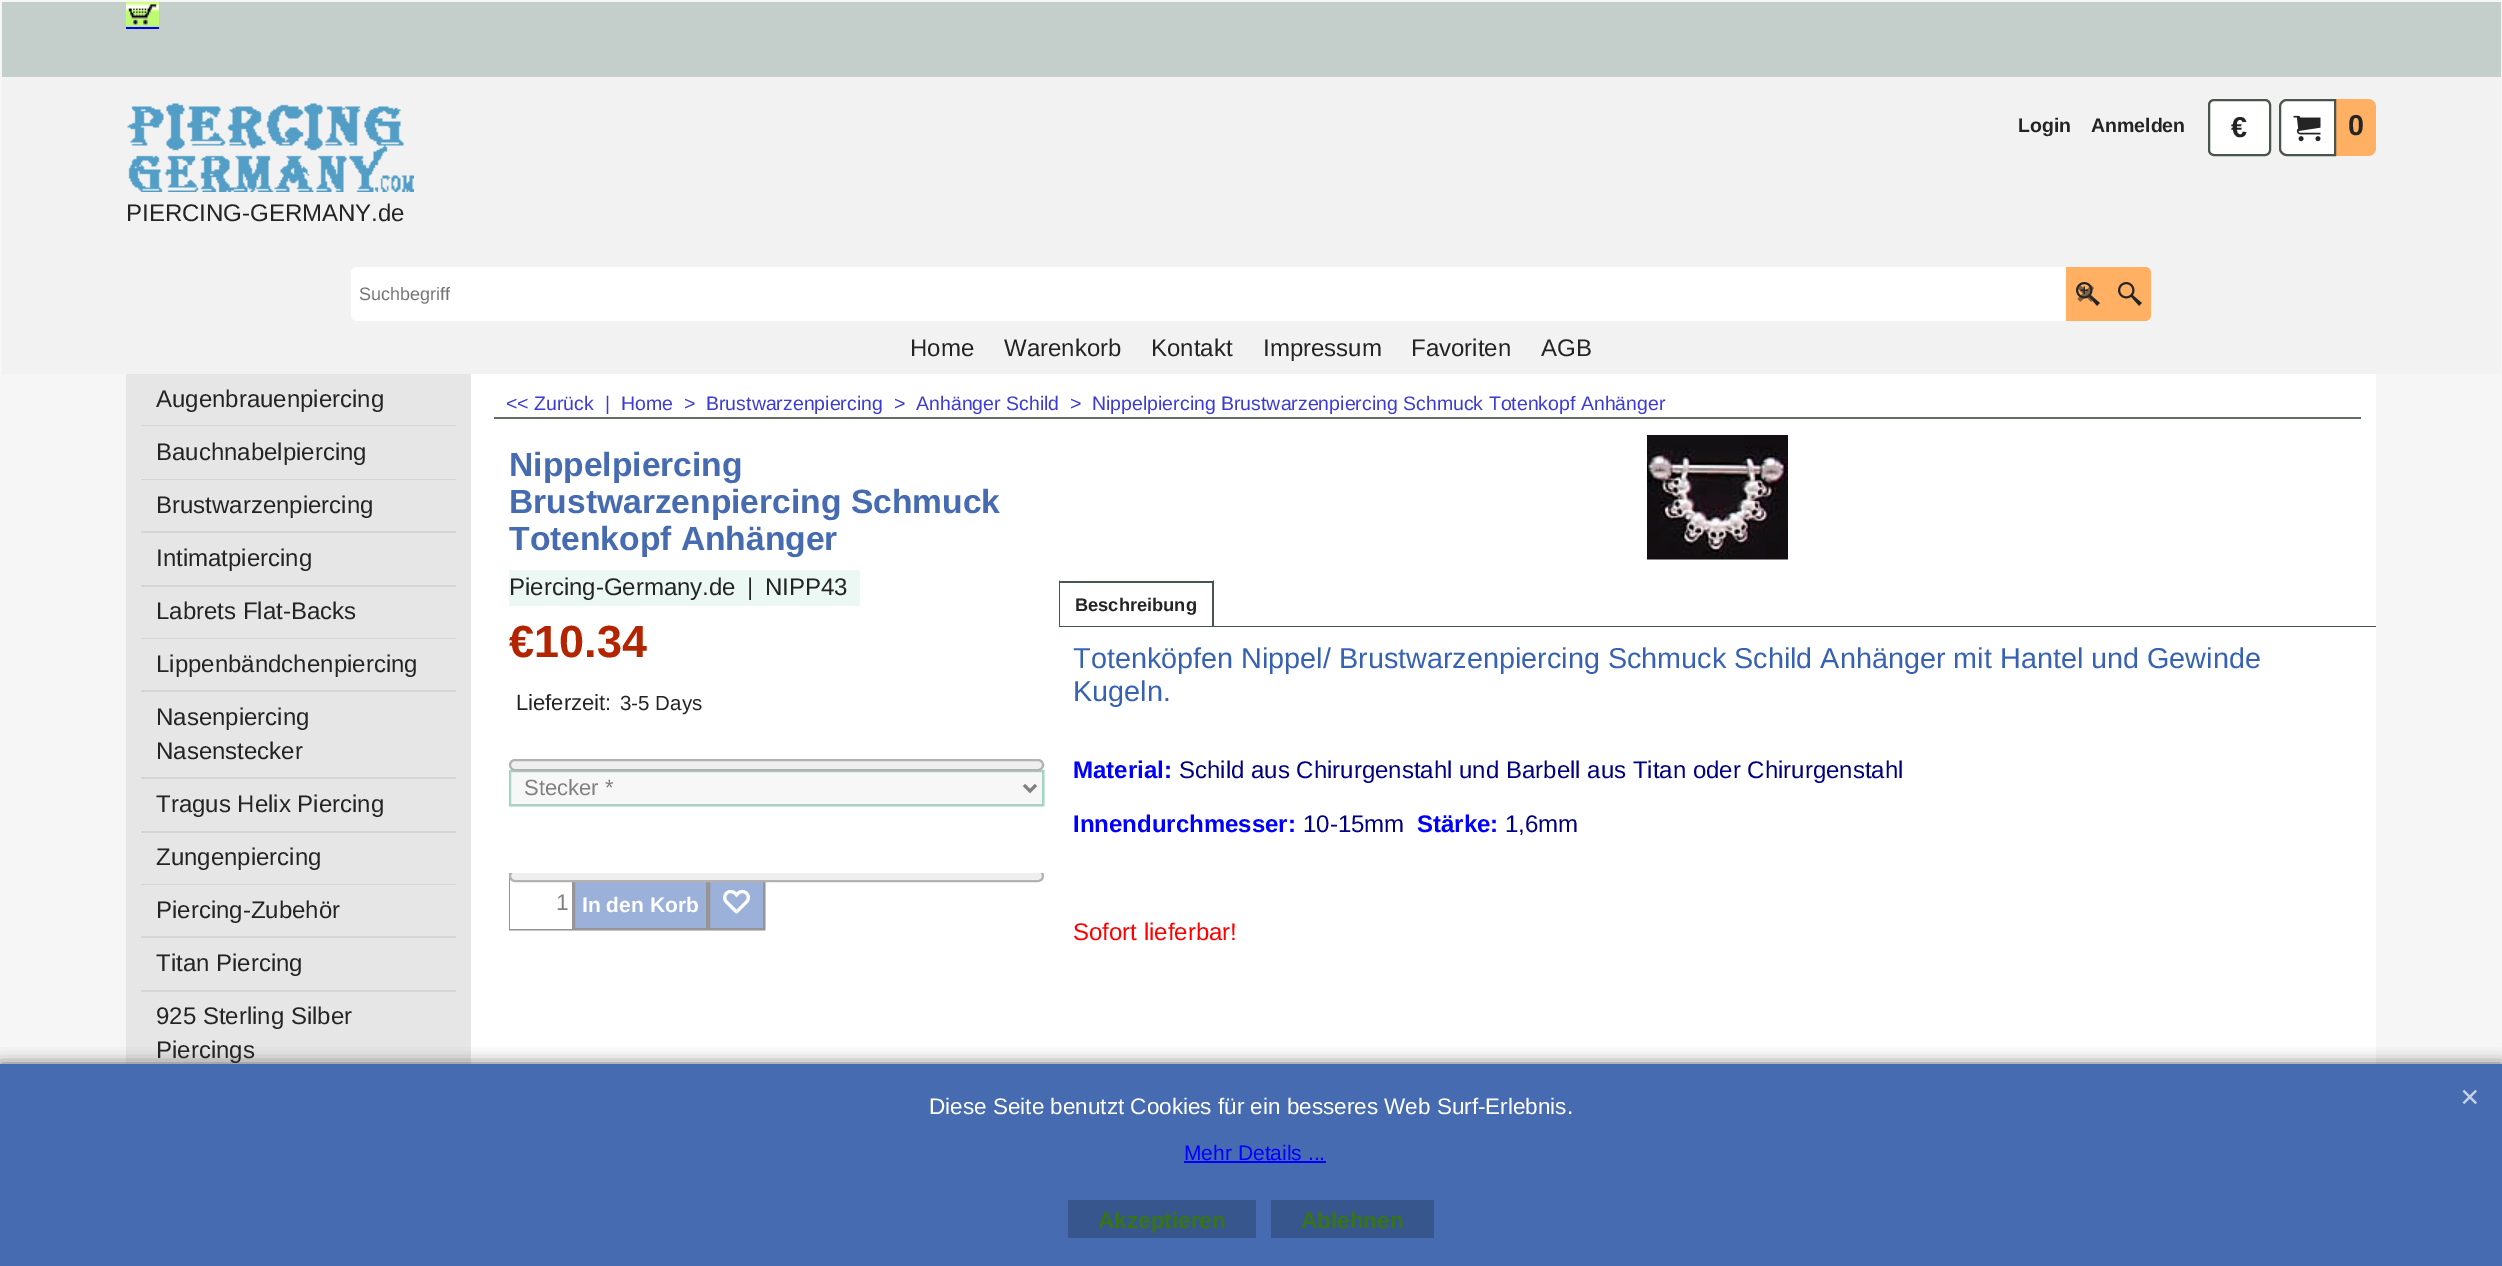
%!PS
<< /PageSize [2502 1266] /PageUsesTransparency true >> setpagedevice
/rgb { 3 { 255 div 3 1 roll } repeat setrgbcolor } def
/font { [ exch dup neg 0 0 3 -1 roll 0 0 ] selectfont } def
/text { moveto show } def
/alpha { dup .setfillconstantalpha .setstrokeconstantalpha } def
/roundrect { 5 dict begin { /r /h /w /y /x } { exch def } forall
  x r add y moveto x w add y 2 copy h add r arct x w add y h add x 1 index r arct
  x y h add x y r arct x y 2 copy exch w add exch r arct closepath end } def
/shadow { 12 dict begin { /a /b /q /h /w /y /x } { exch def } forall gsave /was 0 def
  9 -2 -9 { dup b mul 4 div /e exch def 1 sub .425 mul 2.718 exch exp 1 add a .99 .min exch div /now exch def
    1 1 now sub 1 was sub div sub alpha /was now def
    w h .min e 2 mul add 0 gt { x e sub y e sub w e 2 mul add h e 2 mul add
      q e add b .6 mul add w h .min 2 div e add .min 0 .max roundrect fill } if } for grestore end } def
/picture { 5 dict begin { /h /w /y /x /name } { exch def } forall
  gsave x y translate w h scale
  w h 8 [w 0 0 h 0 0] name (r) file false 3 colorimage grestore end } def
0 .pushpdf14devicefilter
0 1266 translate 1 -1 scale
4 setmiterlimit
246 246 246 rgb
0 0 2502 1266 rectfill
196 207 203 rgb
2 2 2499 75 rectfill
0 0 255 rgb
126 27 33 2 rectfill
(img_01.rgb) 126 1 33 26 picture
242 242 242 rgb
2 77 2499 297 rectfill
255 255 255 rgb
2209 100 61 55 5 roundrect gsave fill grestore
72 85 77 rgb
2 setlinewidth
stroke
255 176 99 rgb
2279 99 97 57 8 roundrect fill
255 255 255 rgb
2287 100 moveto 48 0 rlineto 0 55 rlineto -48 0 rlineto -4 0 -7 -3 -7 -7 rcurveto 0 -41 rlineto 0 -4 3 -7 7 -7 rcurveto closepath gsave fill grestore
72 85 77 rgb
stroke
(img_02.rgb) 2293 115 28 27 picture
(img_03.rgb) 127 103 287 89 picture
255 255 255 rgb
351 267 1800 54 6 roundrect fill
255 176 99 rgb
2066 267 42 54 rectfill
(img_04.rgb) 2076 282 24 24 picture
2108 267 moveto 37 0 rlineto 3.5 0 6 2.5 6 6 rcurveto 0 42 rlineto 0 3.5 -2.5 6 -6 6 rcurveto -37 0 rlineto closepath fill
(img_05.rgb) 2118 282 24 24 picture
(img_06.rgb) 2077 285 17 17 picture
255 255 255 rgb
471 374 1905 690 rectfill
230 230 230 rgb
126 374 345 690 rectfill
213 213 213 rgb
141 425 315 1 rectfill
141 479 315 1 rectfill
141 531 315 2 rectfill
141 585 315 2 rectfill
141 638 315 1 rectfill
141 690 315 2 rectfill
141 777 315 2 rectfill
141 831 315 2 rectfill
141 884 315 1 rectfill
141 936 315 2 rectfill
141 990 315 2 rectfill
98 109 102 rgb
494 417 1867 2 rectfill
235 248 244 rgb
509 570 351 36 rectfill
239 239 239 rgb
510 771 moveto 533 0 rlineto 0 34 rlineto -533 0 rlineto closepath gsave fill grestore
72 170 133 rgb
stroke
0 0 0 rgb
3 setlinewidth
1024 785 moveto 6 6 rlineto 6 -6 rlineto stroke
42 42 42 rgb
2 setlinewidth
510 874 62 55 rectstroke
255 255 255 rgb
510 879 62 50 rectfill
55 98 180 rgb
575 882 131 46 rectfill
42 42 42 rgb
574 874 133 55 rectstroke
55 98 180 rgb
710 882 53 46 rectfill
42 42 42 rgb
709 874 55 55 rectstroke
(img_07.rgb) 723 889 27 25 picture
72 85 77 rgb
1059 581 155 2 rectfill
1059 626 1317 1 rectfill
1214 580 moveto 0 47 rlineto -2 -1 rlineto 0 -44 rlineto closepath fill
1059 627 moveto 0 -47 rlineto 1 2 rlineto 0 44 rlineto closepath fill
(img_08.rgb) 1647 435 141 125 picture
102 102 102 rgb
0 1064 2502 202 0 7.5 1 shadow
70 107 177 rgb
0 1064 2502 202 rectfill
0 0 255 rgb
1184 1161 142 2 rectfill
(img_09.rgb) 2462 1089 15 16 picture
56 86 142 rgb
1068 1200 188 38 rectfill
1271 1200 163 38 rectfill
/LiberationSans-Bold 19.5 font
36 36 36 rgb
(Login) 2018 132 text
(Anmelden) 2091 132 text
/LiberationSans-Bold 28.8 font
(€) 2231 137 text
(0) 2348 135 text
/LiberationSans-Regular 24 font
(PIERCING-GERMANY.de) 126 221 text
/LiberationSans-Regular 18 font
117 117 117 rgb
(Suchbegriff) 359 300 text
/LiberationSans-Regular 24 font
36 36 36 rgb
(Home) 910 356 text
(Warenkorb) 1004 356 text
(Kontakt) 1151 356 text
(Impressum) 1263 356 text
(Favoriten) 1411 356 text
(AGB) 1541 356 text
(Augenbrauenpiercing) 156 407 text
(Bauchnabelpiercing) 156 460 text
(Brustwarzenpiercing) 156 513 text
(Intimatpiercing) 156 566 text
(Labrets Flat-Backs) 156 619 text
(Lippenbändchenpiercing) 156 672 text
(Nasenpiercing) 156 725 text
(Nasenstecker) 156 759 text
(Tragus Helix Piercing) 156 812 text
(Zungenpiercing) 156 865 text
(Piercing-Zubehör) 156 918 text
(Titan Piercing) 156 971 text
(925 Sterling Silber) 156 1024 text
(Piercings) 156 1058 text
/LiberationSans-Regular 19.5 font
60 60 212 rgb
(<< Zurück) 506 410 text
(|) 605 410 text
(Home) 621 410 text
(>) 684 410 text
(Brustwarzenpiercing) 706 410 text
(>) 894 410 text
(Anhänger Schild) 916 410 text
(>) 1070 410 text
(Nippelpiercing Brustwarzenpiercing Schmuck Totenkopf Anhänger) 1092 410 text
/LiberationSans-Bold 33.6 font
70 107 177 rgb
(Nippelpiercing) 509 476 text
(Brustwarzenpiercing Schmuck) 509 513 text
(Totenkopf Anhänger) 509 550 text
/LiberationSans-Regular 24 font
36 36 36 rgb
(Piercing-Germany.de) 509 595 text
(|) 747 595 text
(NIPP43) 765 595 text
/LiberationSans-Bold 45 font
179 37 0 rgb
(€10.34) 509 657 text
/LiberationSans-Regular 22 font
36 36 36 rgb
(Lieferzeit:) 516 710 text
/LiberationSans-Regular 20.5 font
(3-5 Days) 620 710 text
/LiberationSans-Regular 22 font
0 0 0 rgb
(Stecker *) 524 795 text
0.5 alpha
255 255 255 rgb
509 770 535 36 rectfill
1 alpha
239 239 239 rgb
510 760 533 10 5 roundrect gsave fill grestore
178 178 178 rgb
stroke
/LiberationSans-Regular 22.5 font
0 0 0 rgb
(1) 556 910 text
/LiberationSans-Bold 21 font
255 255 255 rgb
(In den Korb) 582 912 text
0.5 alpha
509 873 256 57 rectfill
gsave
509 873 535 57 rectclip
1 alpha
239 239 239 rgb
510 871 533 10 5 roundrect gsave fill grestore
178 178 178 rgb
stroke
grestore
/LiberationSans-Bold 18.25 font
1 alpha
36 36 36 rgb
(Beschreibung) 1075 611 text
/LiberationSans-Regular 28.8 font
55 98 180 rgb
(Totenköpfen Nippel/ Brustwarzenpiercing Schmuck Schild Anhänger mit Hantel und Gewinde) 1073 668 text
(Kugeln.) 1073 701 text
/LiberationSans-Bold 24 font
0 0 255 rgb
(Material:) 1073 778 text
/LiberationSans-Regular 24 font
0 0 128 rgb
(Schild aus Chirurgenstahl und Barbell aus Titan oder Chirurgenstahl) 1179 778 text
/LiberationSans-Bold 24 font
0 0 255 rgb
(Innendurchmesser:) 1073 832 text
/LiberationSans-Regular 24 font
0 0 128 rgb
(10-15mm) 1303 832 text
/LiberationSans-Bold 24 font
0 0 255 rgb
(Stärke:) 1417 832 text
/LiberationSans-Regular 24 font
0 0 128 rgb
(1,6mm) 1505 832 text
255 0 0 rgb
(Sofort lieferbar!) 1073 940 text
/LiberationSans-Regular 22.5 font
255 255 255 rgb
(Diese Seite benutzt Cookies für ein besseres Web Surf-Erlebnis.) 929 1114 text
/LiberationSans-Regular 21 font
0 0 255 rgb
(Mehr Details ...) 1184 1160 text
/LiberationSans-Bold 22.5 font
55 116 21 rgb
(Akzeptieren) 1098 1228 text
(Ablehnen) 1301 1228 text
.poppdf14devicefilter showpage
